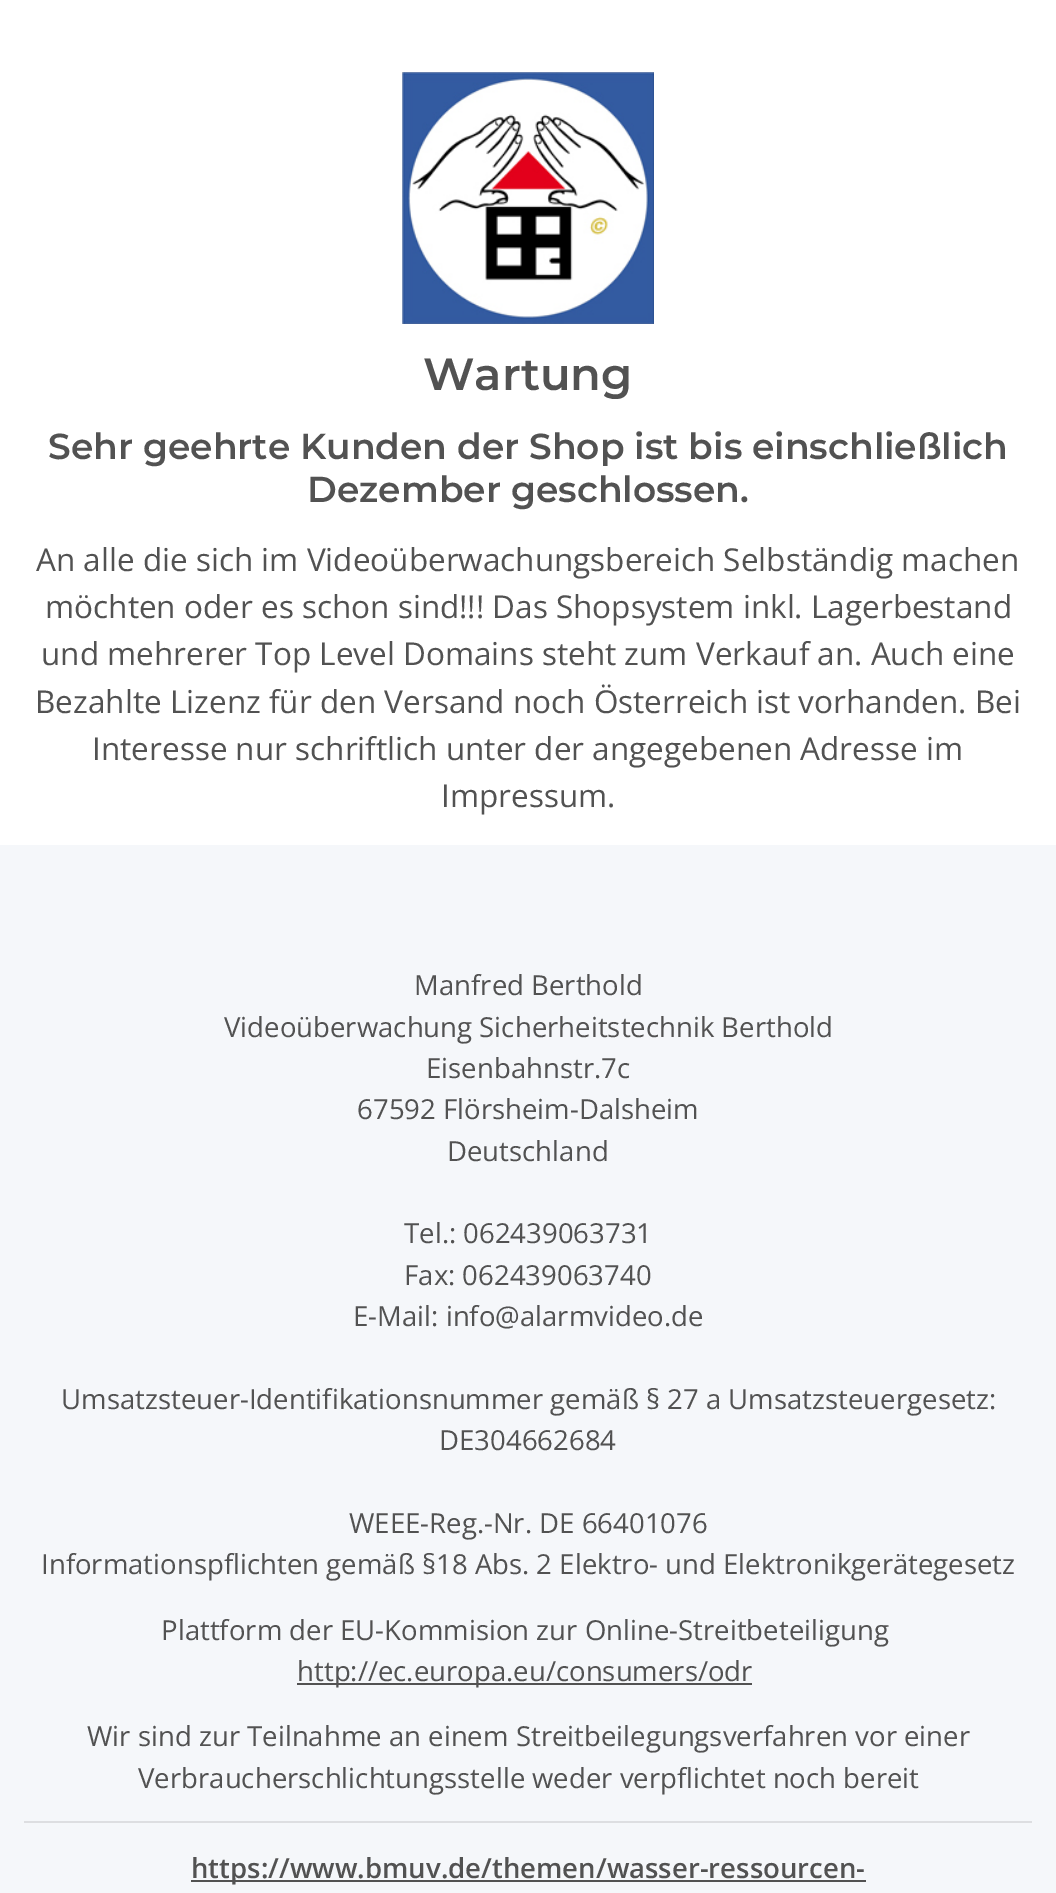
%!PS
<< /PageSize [1056 1893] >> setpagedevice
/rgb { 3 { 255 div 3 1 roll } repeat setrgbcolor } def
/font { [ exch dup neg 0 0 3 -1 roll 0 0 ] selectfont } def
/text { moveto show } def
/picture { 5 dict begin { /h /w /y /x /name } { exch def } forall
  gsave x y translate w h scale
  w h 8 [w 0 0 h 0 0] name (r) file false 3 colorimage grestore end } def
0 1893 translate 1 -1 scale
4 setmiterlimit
255 255 255 rgb
0 0 1056 1893 rectfill
(img_01.rgb) 402 72 252 252 picture
245 247 250 rgb
0 845 1056 1048 rectfill
82 82 82 rgb
297 1683 455 2 rectfill
221 222 225 rgb
24 1821 1008 2 rectfill
82 82 82 rgb
191 1880 675 2 rectfill
/Montserrat-SemiBold 45 font
(Wartung) 423 390 text
/Montserrat-SemiBold 36 font
(Sehr geehrte Kunden der Shop ist bis einschließlich) 48 459 text
(Dezember geschlossen.) 307 502 text
/OpenSans-Regular 31.5 font
(An alle die sich im Videoüberwachungsbereich Selbständig machen) 36 571 text
(möchten oder es schon sind!!! Das Shopsystem inkl. Lagerbestand) 45 618 text
(und mehrerer Top Level Domains steht zum Verkauf an. Auch eine) 41 665 text
(Bezahlte Lizenz für den Versand noch Österreich ist vorhanden. Bei) 35 713 text
(Interesse nur schriftlich unter der angegebenen Adresse im) 92 760 text
(Impressum.) 441 807 text
/OpenSans-Regular 27.55 font
(Manfred Berthold) 414 995 text
(Videoüberwachung Sicherheitstechnik Berthold) 224 1037 text
(Eisenbahnstr.7c) 426 1078 text
(67592 Flörsheim-Dalsheim) 357 1119 text
(Deutschland) 447 1161 text
(Tel.: 062439063731) 404 1243 text
(Fax: 062439063740) 404 1285 text
(E-Mail: info@alarmvideo.de) 353 1326 text
(Umsatzsteuer-Identifikationsnummer gemäß § 27 a Umsatzsteuergesetz:) 61 1409 text
(DE304662684) 439 1450 text
(WEEE-Reg.-Nr. DE 66401076) 349 1533 text
(Informationspflichten gemäß §18 Abs. 2 Elektro- und Elektronikgerätegesetz) 41 1574 text
(Plattform der EU-Kommision zur Online-Streitbeteiligung) 161 1640 text
(http://ec.europa.eu/consumers/odr) 297 1681 text
(Wir sind zur Teilnahme an einem Streitbeilegungsverfahren vor einer) 87 1746 text
(Verbraucherschlichtungsstelle weder verpflichtet noch bereit) 138 1788 text
/OpenSans-SemiBold 27.55 font
(https://www.bmuv.de/themen/wasser-ressourcen-) 191 1878 text
showpage
